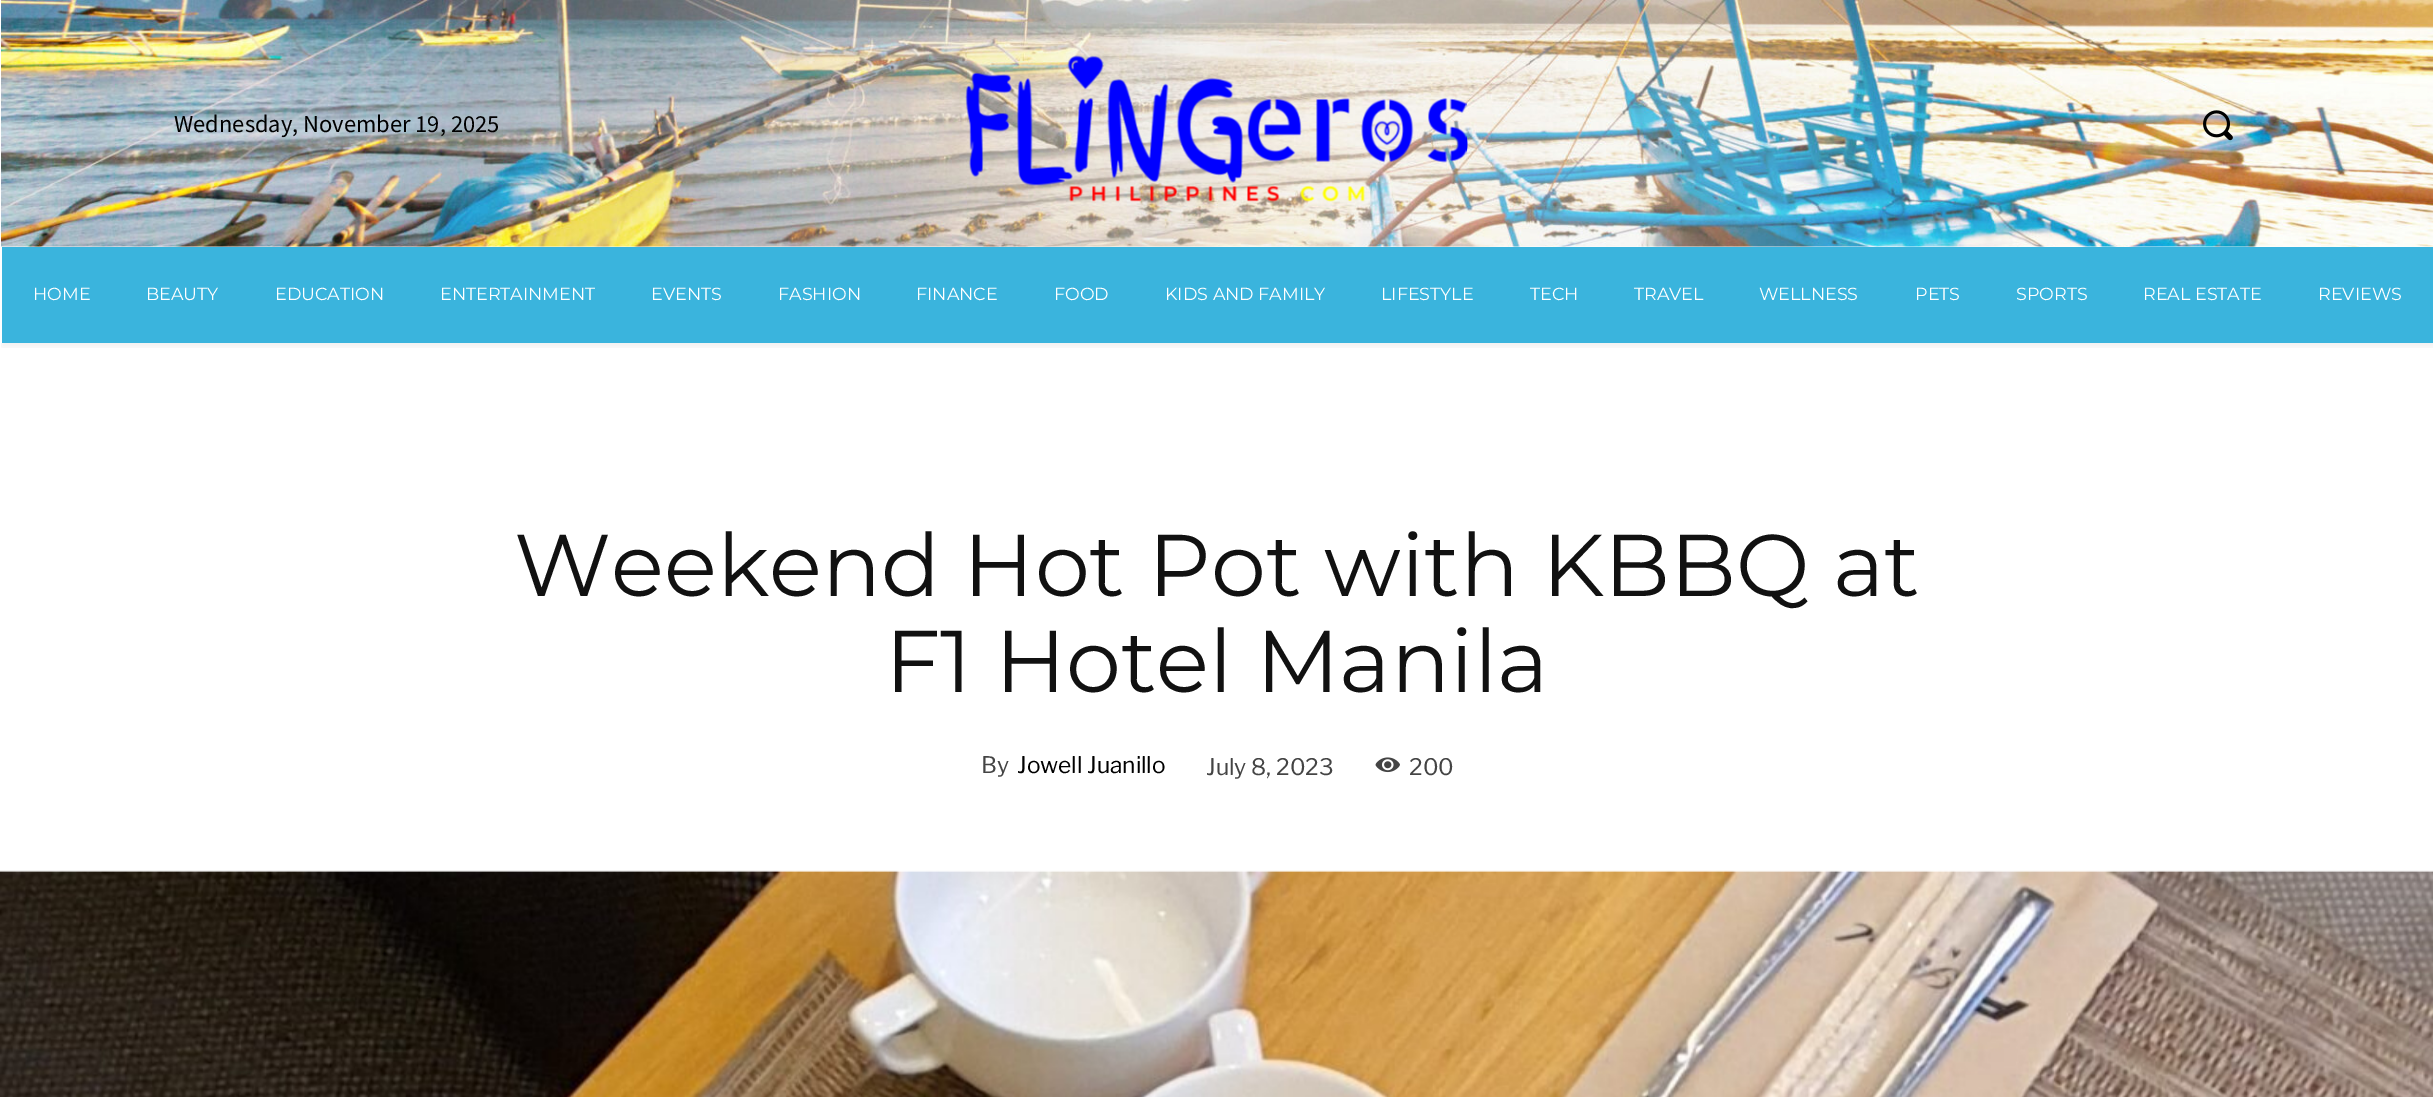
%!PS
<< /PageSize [2433 1097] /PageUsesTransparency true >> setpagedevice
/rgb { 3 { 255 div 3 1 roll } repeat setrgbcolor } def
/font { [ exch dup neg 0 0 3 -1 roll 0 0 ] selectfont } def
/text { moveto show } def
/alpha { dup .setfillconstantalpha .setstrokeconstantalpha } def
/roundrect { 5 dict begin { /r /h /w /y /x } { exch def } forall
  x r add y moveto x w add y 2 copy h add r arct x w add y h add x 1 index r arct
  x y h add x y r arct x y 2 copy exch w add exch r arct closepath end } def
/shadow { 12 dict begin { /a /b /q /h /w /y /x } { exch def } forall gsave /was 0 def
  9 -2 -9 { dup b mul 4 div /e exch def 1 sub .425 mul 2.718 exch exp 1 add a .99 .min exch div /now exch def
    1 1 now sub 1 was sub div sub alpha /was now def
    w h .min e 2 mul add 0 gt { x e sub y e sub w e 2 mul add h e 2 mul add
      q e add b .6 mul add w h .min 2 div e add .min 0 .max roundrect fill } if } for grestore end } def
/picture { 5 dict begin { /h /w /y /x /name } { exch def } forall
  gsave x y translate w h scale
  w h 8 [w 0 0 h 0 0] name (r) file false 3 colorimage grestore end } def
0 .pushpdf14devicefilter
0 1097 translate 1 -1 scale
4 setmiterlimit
255 255 255 rgb
0 0 2433 1097 rectfill
(img_01.rgb) 1 0 2432 247 picture
(img_02.rgb) 965 55 503 147 picture
(img_03.rgb) 2203 110 30 31 picture
58 180 221 rgb
2 247 2431 96 rectfill
gsave
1 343 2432 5 rectclip
0 0 0 rgb
2 250 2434 97 0 3.5 0.06 shadow
grestore
(img_04.rgb) 1375 757 25 16 picture
(img_05.rgb) 0 870 2433 227 picture
/SourceSansPro-Regular 24.5 font
0 0 0 rgb
(Wednesday, November 19, 2025) 174 132 text
/Montserrat-Thin 17.5 font
255 255 255 rgb
(HOME) 33 300 text
(BEAUTY) 146 300 text
(EDUCATION) 275 300 text
(ENTERTAINMENT) 440 300 text
(EVENTS) 651 300 text
(FASHION) 778 300 text
(FINANCE) 916 300 text
(FOOD) 1054 300 text
(KIDS AND FAMILY) 1165 300 text
(LIFESTYLE) 1381 300 text
(TECH) 1530 300 text
(TRAVEL) 1634 300 text
(WELLNESS) 1759 300 text
(PETS) 1915 300 text
(SPORTS) 2016 300 text
(REAL ESTATE) 2143 300 text
(REVIEWS) 2318 300 text
/Montserrat-Thin 87.5 font
17 17 17 rgb
(Weekend Hot Pot with KBBQ at) 514 596 text
(F1 Hotel Manila) 885 692 text
/LibreFranklin-Regular 22.75 font
68 68 68 rgb
(By) 981 773 text
0 0 0 rgb
(Jowell Juanillo) 1017 773 text
68 68 68 rgb
(July 8, 2023) 1206 775 text
(200) 1409 775 text
.poppdf14devicefilter showpage
